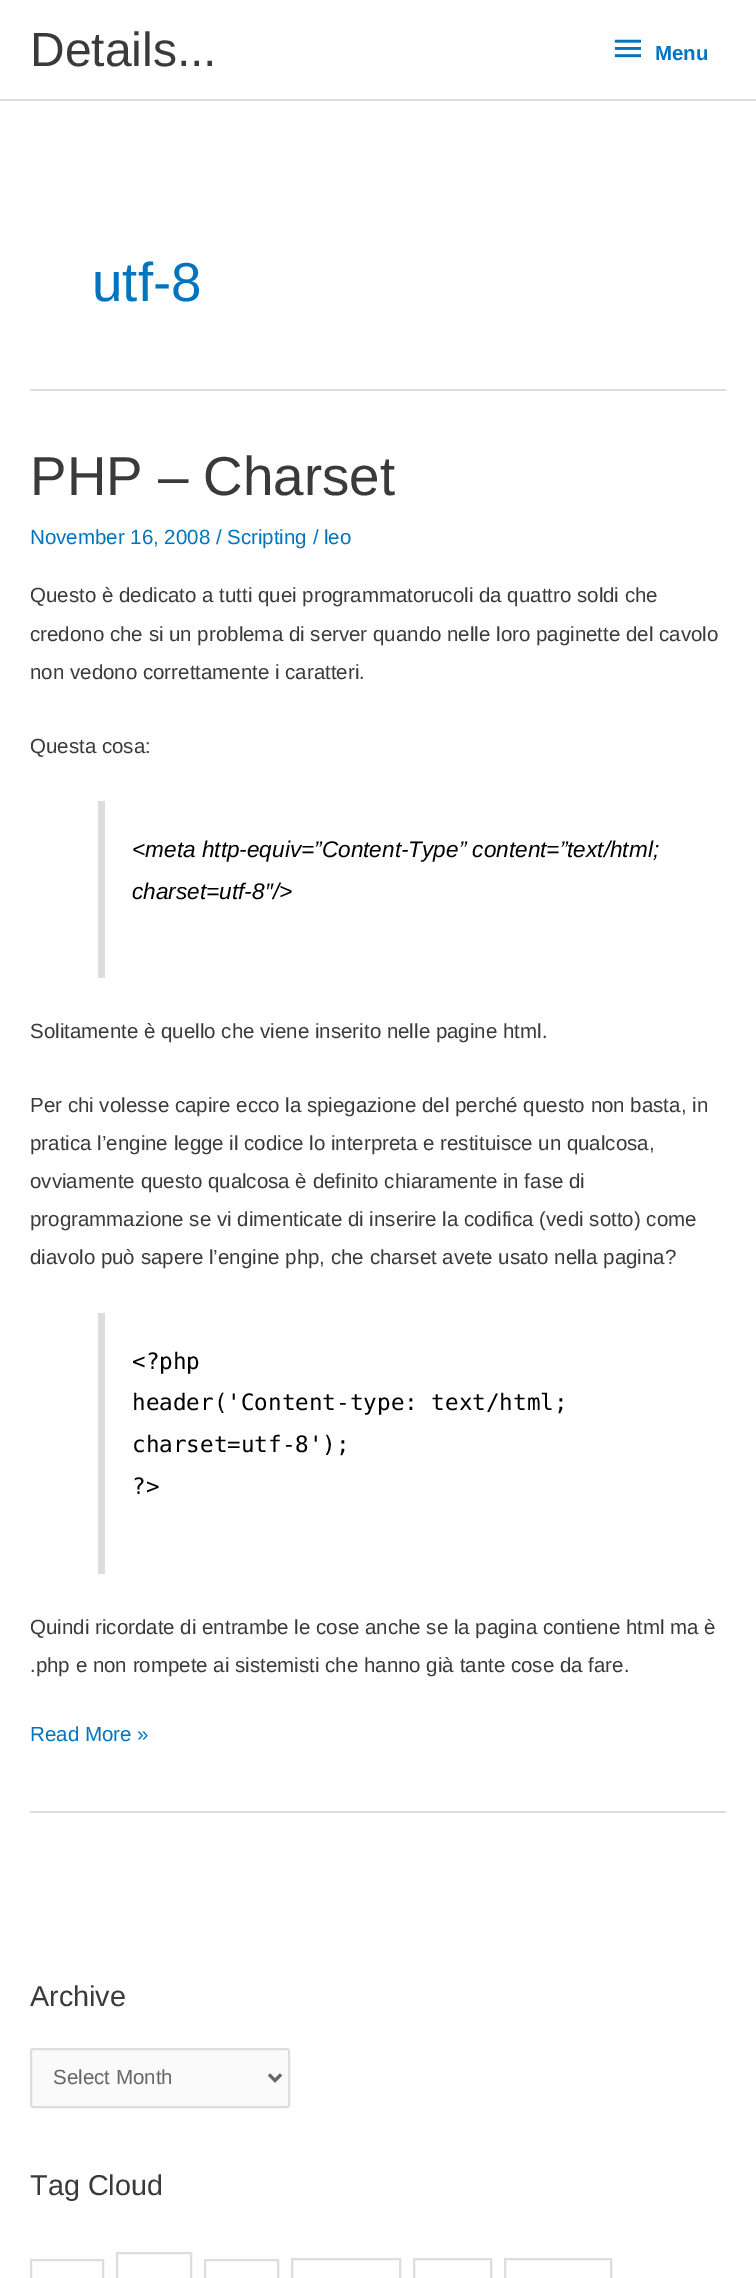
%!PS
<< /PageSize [756 2278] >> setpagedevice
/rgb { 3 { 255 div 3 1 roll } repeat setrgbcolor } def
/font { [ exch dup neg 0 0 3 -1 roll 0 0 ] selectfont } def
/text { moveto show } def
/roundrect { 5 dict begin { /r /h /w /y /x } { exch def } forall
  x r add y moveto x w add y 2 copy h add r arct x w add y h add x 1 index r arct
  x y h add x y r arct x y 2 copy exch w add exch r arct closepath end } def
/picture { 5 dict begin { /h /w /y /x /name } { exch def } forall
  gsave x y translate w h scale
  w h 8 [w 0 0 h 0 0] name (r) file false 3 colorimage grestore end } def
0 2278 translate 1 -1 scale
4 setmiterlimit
255 255 255 rgb
0 0 756 2278 rectfill
221 221 221 rgb
0 99 756 2 rectfill
(img_01.rgb) 614 39 28 19 picture
30 389 696 2 rectfill
30 1811 696 2 rectfill
98 801 7 177 rectfill
98 1313 7 261 rectfill
250 250 250 rgb
31 2049 258 58 2 roundrect gsave fill grestore
221 221 221 rgb
2 setlinewidth
stroke
102 102 102 rgb
3 setlinewidth
269 2074.5 moveto 6 6 rlineto 6 -6 rlineto stroke
221 221 221 rgb
2 setlinewidth
31 2260 72 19 rectstroke
117 2253 74 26 rectstroke
205 2260 73 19 rectstroke
292 2259 108 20 rectstroke
414 2259 77 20 rectstroke
505 2259 106 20 rectstroke
/LiberationSans-Regular 48 font
58 58 58 rgb
(Details...) 30 66 text
/LiberationSans-Bold 20.5 font
2 116 190 rgb
(Menu) 655 60 text
/LiberationSans-Regular 54.75 font
(utf-8) 92 301 text
58 58 58 rgb
(PHP – Charset) 30 495 text
/LiberationSans-Regular 20.5 font
2 116 190 rgb
(November 16, 2008 / Scripting / leo) 30 544 text
58 58 58 rgb
(Questo è dedicato a tutti quei programmatorucoli da quattro soldi che) 30 602 text
(credono che si un problema di server quando nelle loro paginette del cavolo) 30 641 text
(non vedono correttamente i caratteri.) 30 679 text
(Questa cosa:) 30 753 text
/LiberationSans-Italic 22.6 font
0 0 0 rgb
(<meta http-equiv=”Content-Type” content=”text/html;) 132 857 text
(charset=utf-8″/>) 132 899 text
/LiberationSans-Regular 20.5 font
58 58 58 rgb
(Solitamente è quello che viene inserito nelle pagine html.) 30 1038 text
(Per chi volesse capire ecco la spiegazione del perché questo non basta, in) 30 1112 text
(pratica l’engine legge il codice lo interpreta e restituisce un qualcosa,) 30 1150 text
(ovviamente questo qualcosa è definito chiaramente in fase di) 30 1188 text
(programmazione se vi dimenticate di inserire la codifica \(vedi sotto\) come) 30 1226 text
(diavolo può sapere l’engine php, che charset avete usato nella pagina?) 30 1264 text
/DejaVuSansMono-Regular 22.6 font
0 0 0 rgb
(<?php) 132 1369 text
(header\('Content-type: text/html;) 132 1410 text
(charset=utf-8'\);) 132 1452 text
(?>) 132 1494 text
/LiberationSans-Regular 20.5 font
58 58 58 rgb
(Quindi ricordate di entrambe le cose anche se la pagina contiene html ma è) 30 1634 text
(.php e non rompete ai sistemisti che hanno già tante cose da fare.) 30 1672 text
2 116 190 rgb
(Read More ») 30 1741 text
/LiberationSans-Regular 28.75 font
58 58 58 rgb
(Archive) 30 2006 text
/LiberationSans-Regular 20.5 font
102 102 102 rgb
(Select Month) 53 2084 text
/LiberationSans-Regular 28.75 font
58 58 58 rgb
(Tag Cloud) 30 2195 text
showpage
